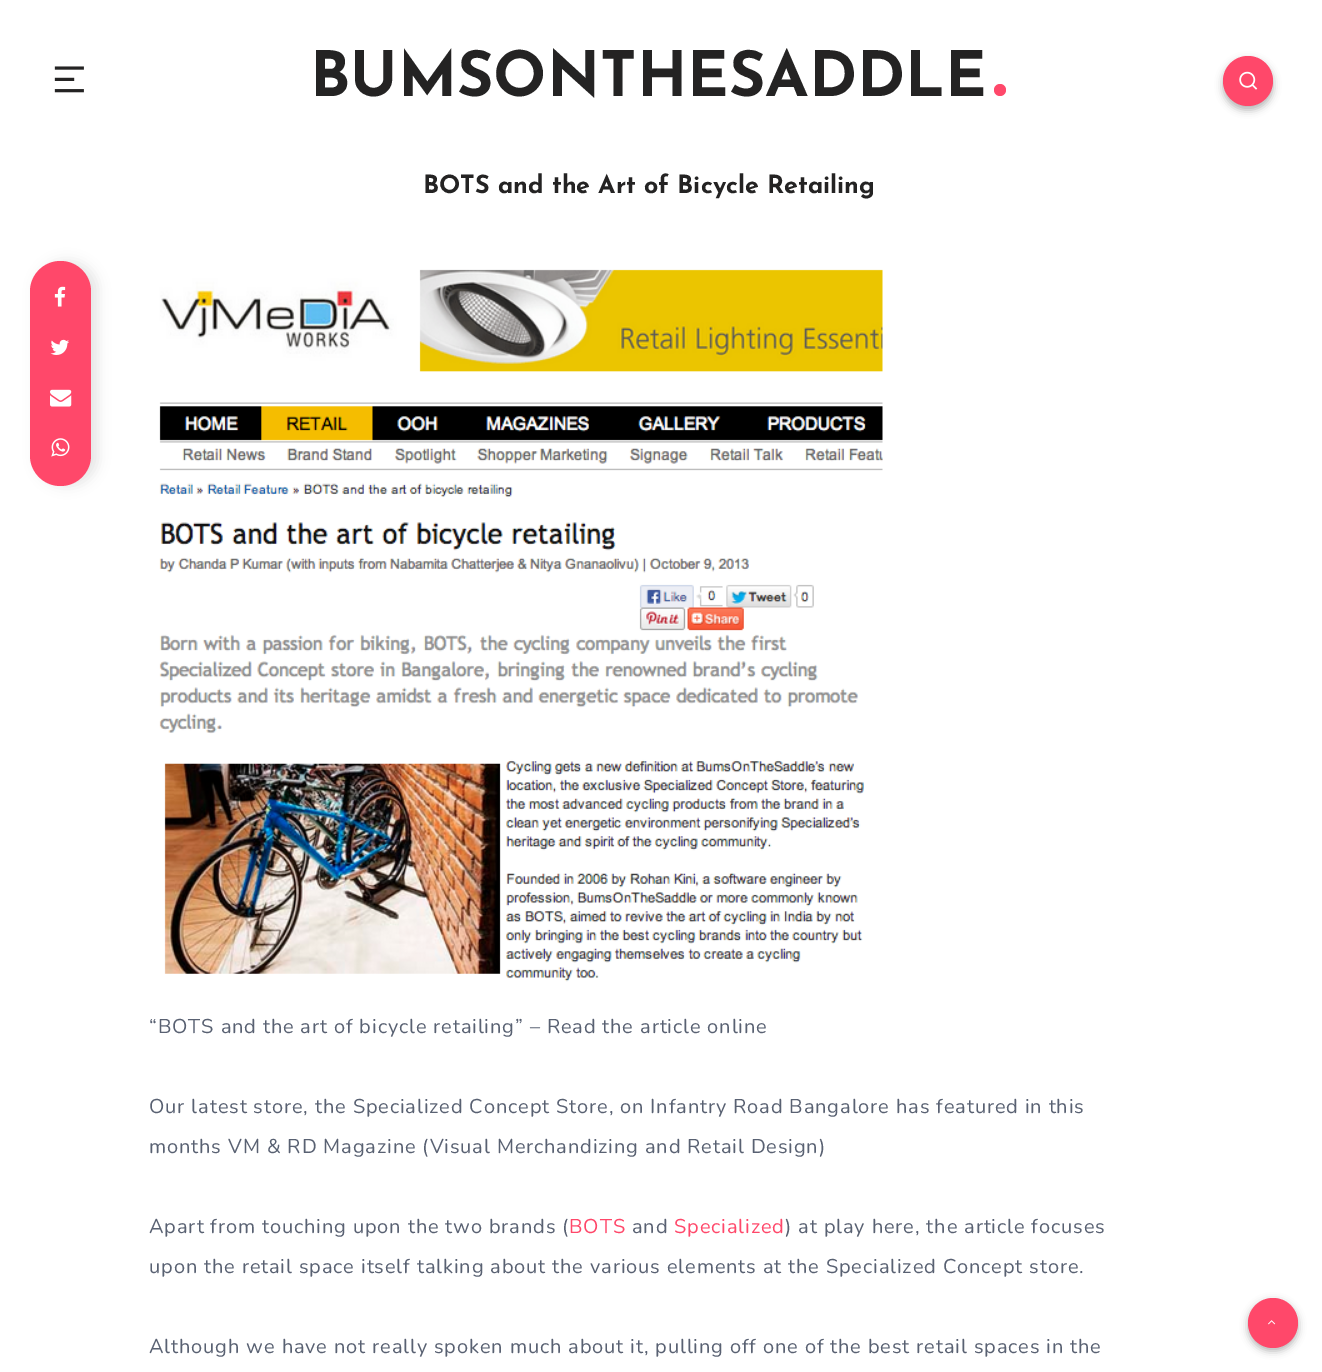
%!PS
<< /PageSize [1322 1372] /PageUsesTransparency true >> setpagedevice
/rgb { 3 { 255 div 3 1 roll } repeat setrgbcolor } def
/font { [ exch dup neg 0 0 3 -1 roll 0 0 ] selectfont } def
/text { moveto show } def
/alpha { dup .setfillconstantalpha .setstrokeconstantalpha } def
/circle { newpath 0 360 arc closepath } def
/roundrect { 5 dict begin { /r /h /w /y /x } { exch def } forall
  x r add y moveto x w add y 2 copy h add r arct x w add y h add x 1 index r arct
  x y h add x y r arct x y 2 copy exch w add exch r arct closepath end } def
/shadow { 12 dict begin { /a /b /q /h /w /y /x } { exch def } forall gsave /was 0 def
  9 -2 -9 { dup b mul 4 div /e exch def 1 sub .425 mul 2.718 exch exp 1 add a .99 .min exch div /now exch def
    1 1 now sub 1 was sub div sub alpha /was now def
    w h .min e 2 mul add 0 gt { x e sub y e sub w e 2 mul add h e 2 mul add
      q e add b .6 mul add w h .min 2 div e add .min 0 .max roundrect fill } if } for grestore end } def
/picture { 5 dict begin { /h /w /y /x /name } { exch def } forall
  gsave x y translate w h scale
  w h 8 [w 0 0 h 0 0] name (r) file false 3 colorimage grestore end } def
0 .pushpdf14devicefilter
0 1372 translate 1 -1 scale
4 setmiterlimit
255 255 255 rgb
0 0 1322 1372 rectfill
(img_01.rgb) 54 66 30 27 picture
255 72 106 rgb
1000 90 6 circle fill
0 0 0 rgb
1223 60 50 50 25 4 0.3 shadow
255 72 106 rgb
1248 81 25 circle fill
(img_02.rgb) 1239 71 19 19 picture
0 0 0 rgb
36 261 62 225 31 6 0.1 shadow
255 72 106 rgb
30 261 61 225 30.5 roundrect fill
(img_03.rgb) 54 286 12 21 picture
(img_04.rgb) 50 339 19 16 picture
(img_05.rgb) 50 389 22 18 picture
(img_06.rgb) 51 438 19 19 picture
(img_07.rgb) 159 269 724 713 picture
0 0 0 rgb
1248 1301 50 50 25 4 0.3 shadow
255 72 106 rgb
1273 1323 25 circle fill
(img_08.rgb) 1268 1320 8 5 picture
/JosefinSans-Bold 62.5 font
36 35 35 rgb
(BUMSONTHESADDLE) 310 96 text
/JosefinSans-Bold 25 font
(BOTS and the Art of Bicycle Retailing) 423 193 text
/Nunito-Regular 20 font
89 97 114 rgb
149 1033 moveto 0.88 0 (“BOTS and the art of bicycle retailing” – Read the article online) ashow
149 1113 moveto 0.88 0 (Our latest store, the Specialized Concept Store, on Infantry Road Bangalore has featured in this) ashow
149 1153 moveto 0.88 0 (months VM & RD Magazine \(Visual Merchandizing and Retail Design\)) ashow
149 1233 moveto 0.88 0 (Apart from touching upon the two brands \() ashow
255 72 106 rgb
569 1233 moveto 0.88 0 (BOTS) ashow
89 97 114 rgb
632 1233 moveto 0.88 0 (and) ashow
255 72 106 rgb
674 1233 moveto 0.88 0 (Specialized) ashow
89 97 114 rgb
785 1233 moveto 0.88 0 (\) at play here, the article focuses) ashow
149 1273 moveto 0.88 0 (upon the retail space itself talking about the various elements at the Specialized Concept store.) ashow
149 1353 moveto 0.88 0 (Although we have not really spoken much about it, pulling off one of the best retail spaces in the) ashow
.poppdf14devicefilter showpage
